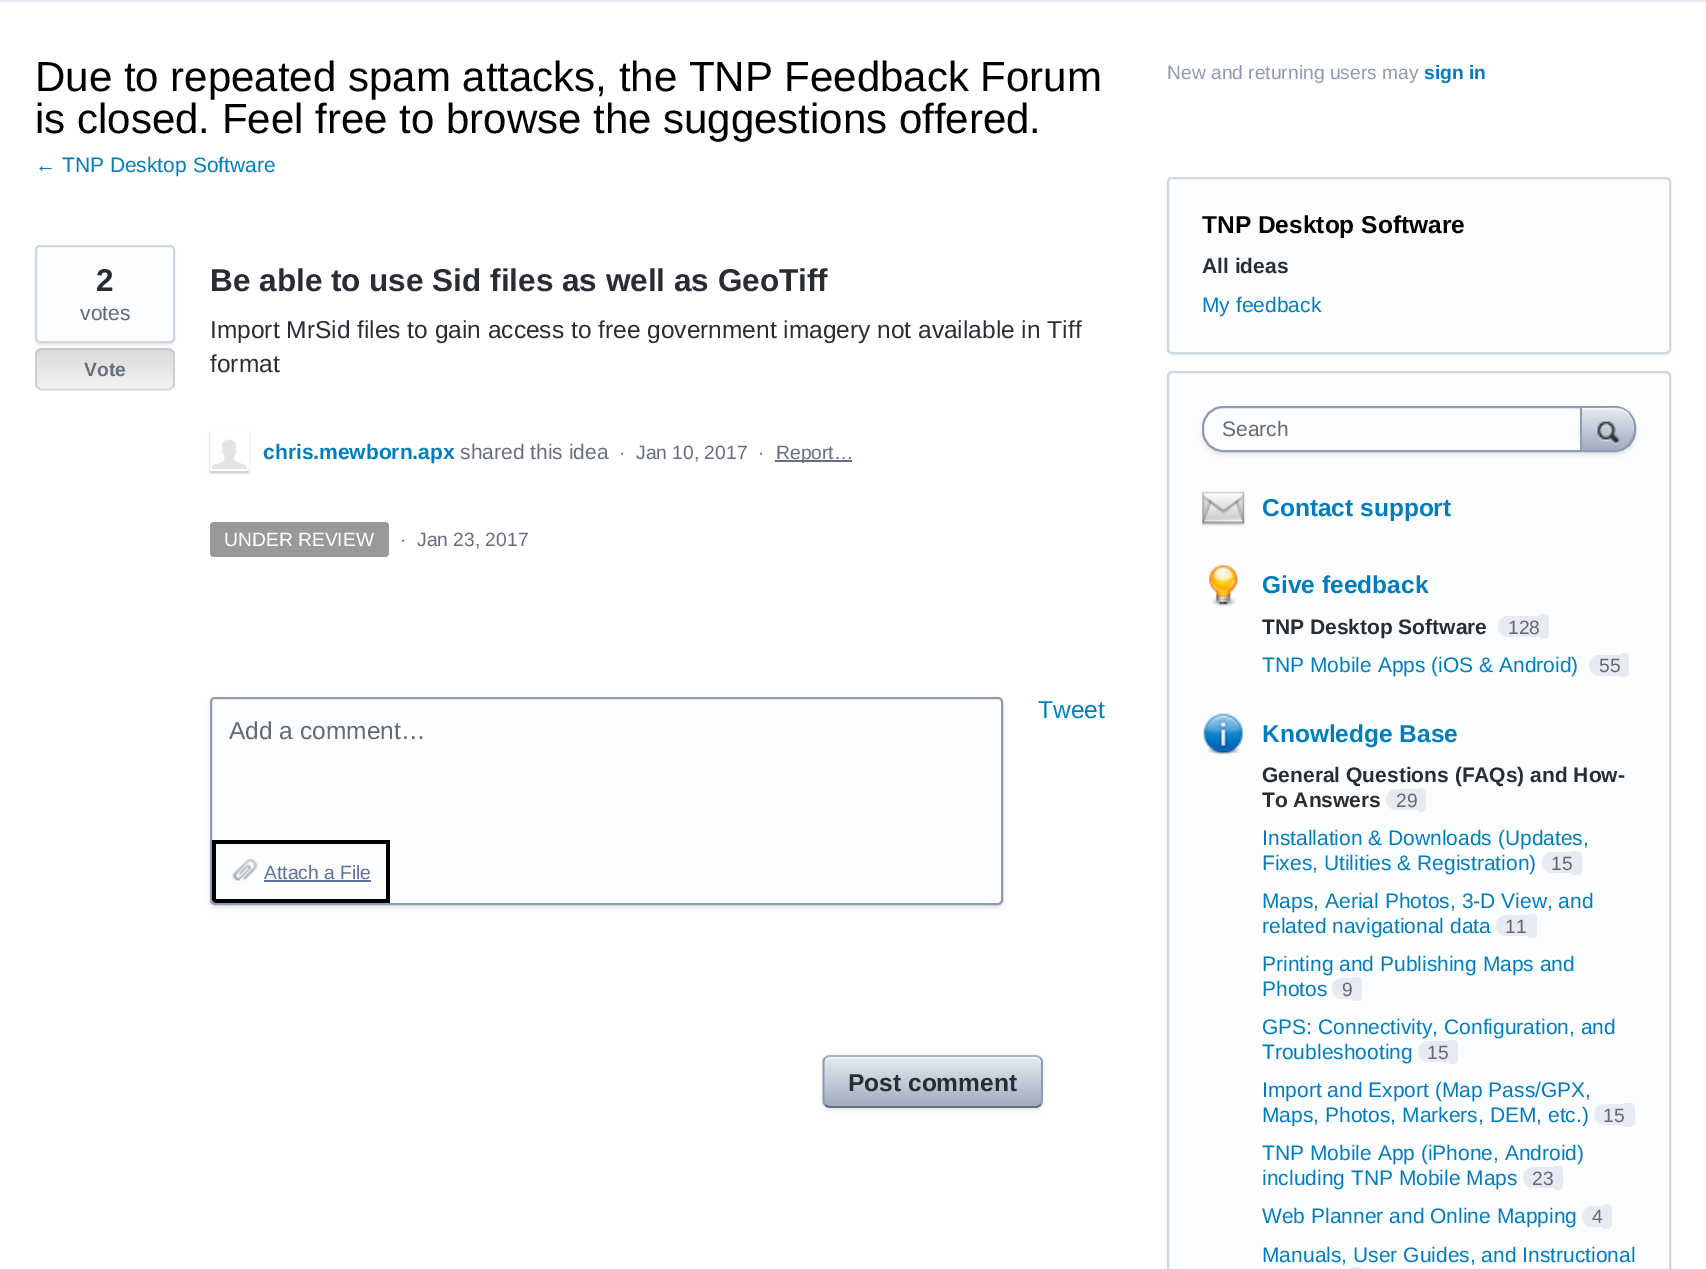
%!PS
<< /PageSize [1706 1269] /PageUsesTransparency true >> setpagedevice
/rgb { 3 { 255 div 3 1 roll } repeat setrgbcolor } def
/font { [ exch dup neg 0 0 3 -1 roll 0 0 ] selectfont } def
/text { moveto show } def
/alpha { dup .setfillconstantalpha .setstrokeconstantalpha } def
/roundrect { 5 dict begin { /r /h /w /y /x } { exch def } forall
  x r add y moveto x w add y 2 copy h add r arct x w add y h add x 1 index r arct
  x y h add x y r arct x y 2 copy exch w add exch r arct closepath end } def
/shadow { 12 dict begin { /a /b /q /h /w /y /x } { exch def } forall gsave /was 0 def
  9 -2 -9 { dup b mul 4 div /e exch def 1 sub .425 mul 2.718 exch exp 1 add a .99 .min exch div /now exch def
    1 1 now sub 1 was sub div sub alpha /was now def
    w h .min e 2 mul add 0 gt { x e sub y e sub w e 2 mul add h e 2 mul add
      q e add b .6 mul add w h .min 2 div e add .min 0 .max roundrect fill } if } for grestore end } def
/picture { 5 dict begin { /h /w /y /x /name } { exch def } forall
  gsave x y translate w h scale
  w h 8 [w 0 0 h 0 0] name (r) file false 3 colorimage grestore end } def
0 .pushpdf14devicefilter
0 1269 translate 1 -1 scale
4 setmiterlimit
255 255 255 rgb
0 0 1706 1269 rectfill
227 232 242 rgb
0 0 1706 2 rectfill
0 0 0 rgb
35 247 140 98 5 1 0.1 shadow
252 253 255 rgb
36 246 138 96 4 roundrect gsave fill grestore
207 215 230 rgb
2 setlinewidth
stroke
gsave
35 348 140 42 7 roundrect clip newpath
gsave 35 348 moveto 140 0 rlineto 0 2 rlineto -140 0 rlineto closepath clip newpath
<< /ShadingType 2 /ColorSpace /DeviceRGB /Coords [37 312 37 350] /Extend [true true] /Function << /FunctionType 2 /Domain [0 1] /C0 [0.855 0.855 0.855] /C1 [0.953 0.953 0.953] /N 1 >> >> shfill grestore
gsave 35 350 moveto 140 0 rlineto 0 39 rlineto -140 0 rlineto closepath clip newpath
<< /ShadingType 2 /ColorSpace /DeviceRGB /Coords [37 350 37 389] /Extend [true true] /Function << /FunctionType 2 /Domain [0 1] /C0 [0.855 0.855 0.855] /C1 [0.953 0.953 0.953] /N 1 >> >> shfill grestore
grestore
197 197 197 rgb
1.8 setlinewidth
37.5 351 moveto 1.5 -1 3 -2 4.5 -2 rcurveto 126 0 rlineto 1.5 0 3 1 4.5 2 rcurveto stroke
206 206 206 rgb
172.5 351 moveto 1 1 1.5 2.5 1.5 4 rcurveto 0 28 rlineto 0 2 -0.5 3.5 -1.5 4.5 rcurveto stroke
217 217 217 rgb
172.5 387.5 moveto -1.5 1 -3 2 -4.5 2 rcurveto -126 0 rlineto -1.5 0 -3 -1 -4.5 -2 rcurveto stroke
206 206 206 rgb
37.5 387.5 moveto -1 -1 -1.5 -2.5 -1.5 -4.5 rcurveto 0 -28 rlineto 0 -1.5 0.5 -3 1.5 -4 rcurveto stroke
gsave
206 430 moveto 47 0 rlineto 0 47 rlineto -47 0 rlineto closepath 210 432 moveto 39 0 rlineto 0 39 rlineto -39 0 rlineto closepath eoclip newpath
0 0 0 rgb
210 434 39 39 0 1 0.25 shadow
grestore
255 255 255 rgb
2 setlinewidth
211 433 37 37 rectstroke
(img_01.rgb) 211 439 36 30 picture
102 111 128 rgb
775 460 77 2 rectfill
153 153 153 rgb
210 522 179 35 4 roundrect fill
0 0 0 rgb
210 700 793 208 5 2 0.1 shadow
252 253 255 rgb
211 698 791 206 4 roundrect gsave fill grestore
143 155 179 rgb
stroke
(img_02.rgb) 232 858 26 23 picture
0 0 0 rgb
212 840 moveto 0 59 rlineto 0 2 2 4 4 4 rcurveto 174 0 rlineto 0 -63 rlineto closepath 216 844 moveto 0 55 rlineto 170 0 rlineto 0 -55 rlineto closepath eofill
93 114 152 rgb
264 880 107 2 rectfill
0 0 0 rgb
823 1057 220 53 7 2 0.1 shadow
gsave 824 1057 217 49 5 roundrect clip newpath
<< /ShadingType 2 /ColorSpace /DeviceRGB /Coords [824 1057 824 1106] /Extend [true true] /Function << /FunctionType 2 /Domain [0 1] /C0 [0.902 0.918 0.949] /C1 [0.635 0.675 0.749] /N 1 >> >> shfill grestore
0.5 alpha
255 255 255 rgb
830 1059 moveto 206 0 rlineto 3 0 5 2 5 5 rcurveto 0 -2 rlineto 0 -3 -2 -5 -5 -5 rcurveto -207 0 rlineto -3 0 -5 2 -5 5 rcurveto 0 2 rlineto 0 -3 3 -5 6 -5 rcurveto closepath fill
1 alpha
163 177 204 rgb
1.8 setlinewidth
825 1058 moveto 1.5 -1 3 -2 4.5 -2 rcurveto 206.5 0 rlineto 1.5 0 3 1 4.5 2 rcurveto stroke
143 155 179 rgb
1040.5 1058 moveto 1 1 1.5 2.5 1.5 4 rcurveto 0 39 rlineto 0 1.5 -0.5 3 -1.5 4 rcurveto stroke
102 111 128 rgb
1040.5 1105 moveto -1.5 1 -3 2 -4.5 2 rcurveto -206.5 0 rlineto -1.5 0 -3 -1 -4.5 -2 rcurveto stroke
143 155 179 rgb
825 1105 moveto -1 -1 -1.5 -2.5 -1.5 -4 rcurveto 0 -39 rlineto 0 -1.5 0.5 -3 1.5 -4 rcurveto stroke
0 0 0 rgb
1167 179 504 176 5 1 0.1 shadow
252 253 255 rgb
1168 178 502 175 4 roundrect gsave fill grestore
207 215 230 rgb
2 setlinewidth
stroke
0 0 0 rgb
1167 373 504 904 5 1 0.1 shadow
252 253 255 rgb
1168 372 502 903 4 roundrect gsave fill grestore
207 215 230 rgb
stroke
0 0 0 rgb
1202 410 434 45 21 2 0.1 shadow
252 253 255 rgb
1203 407 432 44 20 roundrect gsave fill grestore
143 155 179 rgb
stroke
gsave
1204 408 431 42 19 roundrect clip newpath
0 0 0 rgb
1580 408 56 44 21 2 0.1 shadow
grestore
gsave 1582 408 moveto 33 0 rlineto 11 0 19 8 19 19 rcurveto 0 2 rlineto 0 11 -8 21 -19 21 rcurveto -33 0 rlineto closepath clip newpath
<< /ShadingType 2 /ColorSpace /DeviceRGB /Coords [1582 408 1582 450] /Extend [true true] /Function << /FunctionType 2 /Domain [0 1] /C0 [0.902 0.918 0.949] /C1 [0.635 0.675 0.749] /N 1 >> >> shfill grestore
0.5 alpha
255 255 255 rgb
1582 410 moveto 0 -2 rlineto 23 0 rlineto 11 0 21 -2 27 10 rcurveto 3 6 3 13 1 18 rcurveto 3 -13 -3 -26 -18 -26 rcurveto closepath fill
1 alpha
163 177 204 rgb
1615 408 moveto 5.5 0 10 1.5 14 5 rcurveto -0.5 0.5 rlineto -3 -3.5 -8 -5.5 -13.5 -5.5 rcurveto closepath fill
143 155 179 rgb
1618 450 moveto 15.5 -3 21.5 -25.5 10.5 -36.5 rcurveto 0.5 -0.5 rlineto 6.5 6.5 8 19 4 27 rcurveto -1.5 2.5 -4 5 -7 7 rcurveto -2 1 -5.5 3 -8 3 rcurveto closepath fill
1580 408 2 42 rectfill
(img_03.rgb) 1597 421 23 24 picture
(img_04.rgb) 1202 491 43 35 picture
(img_05.rgb) 1208 564 30 42 picture
231 234 242 rgb
1508.5 616 moveto 31.5 0 rlineto 0 21 rlineto -31.5 0 rlineto -6 0 -10.5 -4.5 -10.5 -10.5 rcurveto 0 -6 4.5 -10.5 10.5 -10.5 rcurveto closepath fill
1540 614 moveto 4.5 0 rlineto 2.5 0 4.5 2 4.5 4.5 rcurveto 0 16 rlineto 0 2.5 -2 4.5 -4.5 4.5 rcurveto -4.5 0 rlineto closepath fill
1599.5 655 moveto 21.5 0 rlineto 0 21 rlineto -21.5 0 rlineto -6 0 -10.5 -4.5 -10.5 -10.5 rcurveto 0 -6 4.5 -10.5 10.5 -10.5 rcurveto closepath fill
1621 653 moveto 4 0 rlineto 2 0 4 2 4 4 rcurveto 0 16 rlineto 0 2 -2 4 -4 4 rcurveto -4 0 rlineto closepath fill
(img_06.rgb) 1203 713 40 42 picture
1396.5 789 moveto 21.5 0 rlineto 0 21 rlineto -21.5 0 rlineto -6 0 -10.5 -4.5 -10.5 -10.5 rcurveto 0 -6 4.5 -10.5 10.5 -10.5 rcurveto closepath fill
1418 788 moveto 4 0 rlineto 2 0 4 2 4 4 rcurveto 0 16 rlineto 0 2 -2 4 -4 4 rcurveto -4 0 rlineto closepath fill
1552.5 852 moveto 19.5 0 rlineto 0 21 rlineto -19.5 0 rlineto -6 0 -10.5 -4.5 -10.5 -10.5 rcurveto 0 -6 4.5 -10.5 10.5 -10.5 rcurveto closepath fill
1572 851 moveto 5 0 rlineto 3 0 5 2 5 5 rcurveto 0 14 rlineto 0 3 -2 5 -5 5 rcurveto -5 0 rlineto closepath fill
1506.5 915 moveto 21.5 0 rlineto 0 21 rlineto -21.5 0 rlineto -6 0 -10.5 -4.5 -10.5 -10.5 rcurveto 0 -6 4.5 -10.5 10.5 -10.5 rcurveto closepath fill
1528 914 moveto 4.5 0 rlineto 2.5 0 4.5 2 4.5 4.5 rcurveto 0 15 rlineto 0 2.5 -2 4.5 -4.5 4.5 rcurveto -4.5 0 rlineto closepath fill
1342.5 978 moveto 10.5 0 rlineto 0 21 rlineto -10.5 0 rlineto -6 0 -10.5 -4.5 -10.5 -10.5 rcurveto 0 -6 4.5 -10.5 10.5 -10.5 rcurveto closepath fill
1353 977 moveto 4.5 0 rlineto 2.5 0 4.5 2 4.5 4.5 rcurveto 0 15 rlineto 0 2.5 -2 4.5 -4.5 4.5 rcurveto -4.5 0 rlineto closepath fill
1428.5 1041 moveto 20.5 0 rlineto 0 21 rlineto -20.5 0 rlineto -6 0 -10.5 -4.5 -10.5 -10.5 rcurveto 0 -6 4.5 -10.5 10.5 -10.5 rcurveto closepath fill
1449 1040 moveto 4.5 0 rlineto 2.5 0 4.5 2 4.5 4.5 rcurveto 0 15 rlineto 0 2.5 -2 4.5 -4.5 4.5 rcurveto -4.5 0 rlineto closepath fill
1604.5 1104 moveto 19.5 0 rlineto 0 21 rlineto -19.5 0 rlineto -6 0 -10.5 -4.5 -10.5 -10.5 rcurveto 0 -6 4.5 -10.5 10.5 -10.5 rcurveto closepath fill
1624 1103 moveto 5.5 0 rlineto 3 0 5.5 2.5 5.5 5.5 rcurveto 0 13 rlineto 0 3 -2.5 5.5 -5.5 5.5 rcurveto -5.5 0 rlineto closepath fill
1533.5 1167 moveto 20.5 0 rlineto 0 21 rlineto -20.5 0 rlineto -6 0 -10.5 -4.5 -10.5 -10.5 rcurveto 0 -6 4.5 -10.5 10.5 -10.5 rcurveto closepath fill
1554 1166 moveto 4.5 0 rlineto 2.5 0 4.5 2 4.5 4.5 rcurveto 0 15 rlineto 0 2.5 -2 4.5 -4.5 4.5 rcurveto -4.5 0 rlineto closepath fill
1592.5 1206 moveto 10.5 0 rlineto 0 21 rlineto -10.5 0 rlineto -6 0 -10.5 -4.5 -10.5 -10.5 rcurveto 0 -6 4.5 -10.5 10.5 -10.5 rcurveto closepath fill
1603 1204 moveto 4.5 0 rlineto 2.5 0 4.5 2 4.5 4.5 rcurveto 0 16 rlineto 0 2.5 -2 4.5 -4.5 4.5 rcurveto -4.5 0 rlineto closepath fill
1351 1267 moveto 5.5 0 rlineto 3 0 5.5 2.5 5.5 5.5 rcurveto 0 -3 rlineto 0 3 -2.5 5.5 -5.5 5.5 rcurveto -5.5 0 rlineto closepath fill
/LiberationSans-Regular 42 font
0 0 0 rgb
(Due to repeated spam attacks, the TNP Feedback Forum) 35 91 text
(is closed. Feel free to browse the suggestions offered.) 35 133 text
/LiberationSans-Regular 21 font
0 125 191 rgb
(← TNP Desktop Software) 35 172 text
/LiberationSans-Bold 31.5 font
41 44 51 rgb
(2) 96 291 text
/LiberationSans-Regular 21 font
97 105 115 rgb
(votes) 80 320 text
/LiberationSans-Bold 19.25 font
102 111 128 rgb
(Vote) 84 376 text
/LiberationSans-Bold 31.5 font
41 44 51 rgb
(Be able to use Sid files as well as GeoTiff) 210 291 text
/LiberationSans-Regular 24.5 font
(Import MrSid files to gain access to free government imagery not available in Tiff) 210 338 text
(format) 210 372 text
/LiberationSans-Bold 21 font
0 125 191 rgb
(chris.mewborn.apx) 263 459 text
/LiberationSans-Regular 21 font
102 111 128 rgb
(shared this idea) 460 459 text
/LiberationSans-Regular 19.25 font
97 105 115 rgb
(·) 619 459 text
102 111 128 rgb
(Jan 10, 2017) 636 459 text
97 105 115 rgb
(·) 758 459 text
102 111 128 rgb
(Report…) 776 459 text
255 255 255 rgb
(UNDER REVIEW) 224 546 text
97 105 115 rgb
(·) 400 546 text
102 111 128 rgb
(Jan 23, 2017) 417 546 text
/LiberationSans-Regular 24.5 font
0 125 191 rgb
(Tweet) 1038 718 text
97 105 115 rgb
(Add a comment…) 229 739 text
/LiberationSans-Regular 19.25 font
93 114 152 rgb
(Attach a File) 264 879 text
/LiberationSans-Bold 24.5 font
41 44 51 rgb
(Post comment) 848 1091 text
/LiberationSans-Regular 19.25 font
143 155 179 rgb
(New and returning users may) 1167 79 text
/LiberationSans-Bold 19.25 font
0 125 191 rgb
(sign in) 1424 79 text
/LiberationSans-Bold 24.5 font
0 0 0 rgb
(TNP Desktop Software) 1202 233 text
/LiberationSans-Bold 21 font
41 44 51 rgb
(All ideas) 1202 273 text
/LiberationSans-Regular 21 font
0 125 191 rgb
(My feedback) 1202 312 text
97 105 115 rgb
(Search) 1222 436 text
/LiberationSans-Bold 24.5 font
0 125 191 rgb
(Contact support) 1262 516 text
(Give feedback) 1262 593 text
/LiberationSans-Bold 21 font
41 44 51 rgb
(TNP Desktop Software) 1262 634 text
/LiberationSans-Regular 19.25 font
97 105 115 rgb
(128) 1508 634 text
/LiberationSans-Regular 21 font
0 125 191 rgb
(TNP Mobile Apps \(iOS & Android\)) 1262 672 text
/LiberationSans-Regular 19.25 font
97 105 115 rgb
(55) 1599 672 text
/LiberationSans-Bold 24.5 font
0 125 191 rgb
(Knowledge Base) 1262 742 text
/LiberationSans-Bold 21 font
41 44 51 rgb
(General Questions \(FAQs\) and How-) 1262 782 text
(To Answers) 1262 807 text
/LiberationSans-Regular 19.25 font
97 105 115 rgb
(29) 1396 807 text
/LiberationSans-Regular 21 font
0 125 191 rgb
(Installation & Downloads \(Updates,) 1262 845 text
(Fixes, Utilities & Registration\)) 1262 870 text
/LiberationSans-Regular 19.25 font
97 105 115 rgb
(15) 1551 870 text
/LiberationSans-Regular 21 font
0 125 191 rgb
(Maps, Aerial Photos, 3-D View, and) 1262 908 text
(related navigational data) 1262 933 text
/LiberationSans-Regular 19.25 font
97 105 115 rgb
(11) 1505 933 text
/LiberationSans-Regular 21 font
0 125 191 rgb
(Printing and Publishing Maps and) 1262 971 text
(Photos) 1262 996 text
/LiberationSans-Regular 19.25 font
97 105 115 rgb
(9) 1342 996 text
/LiberationSans-Regular 21 font
0 125 191 rgb
(GPS: Connectivity, Configuration, and) 1262 1034 text
(Troubleshooting) 1262 1059 text
/LiberationSans-Regular 19.25 font
97 105 115 rgb
(15) 1427 1059 text
/LiberationSans-Regular 21 font
0 125 191 rgb
(Import and Export \(Map Pass/GPX,) 1262 1097 text
(Maps, Photos, Markers, DEM, etc.\)) 1262 1122 text
/LiberationSans-Regular 19.25 font
97 105 115 rgb
(15) 1603 1122 text
/LiberationSans-Regular 21 font
0 125 191 rgb
(TNP Mobile App \(iPhone, Android\)) 1262 1160 text
(including TNP Mobile Maps) 1262 1185 text
/LiberationSans-Regular 19.25 font
97 105 115 rgb
(23) 1532 1185 text
/LiberationSans-Regular 21 font
0 125 191 rgb
(Web Planner and Online Mapping) 1262 1223 text
/LiberationSans-Regular 19.25 font
97 105 115 rgb
(4) 1592 1223 text
/LiberationSans-Regular 21 font
0 125 191 rgb
(Manuals, User Guides, and Instructional) 1262 1262 text
.poppdf14devicefilter showpage
